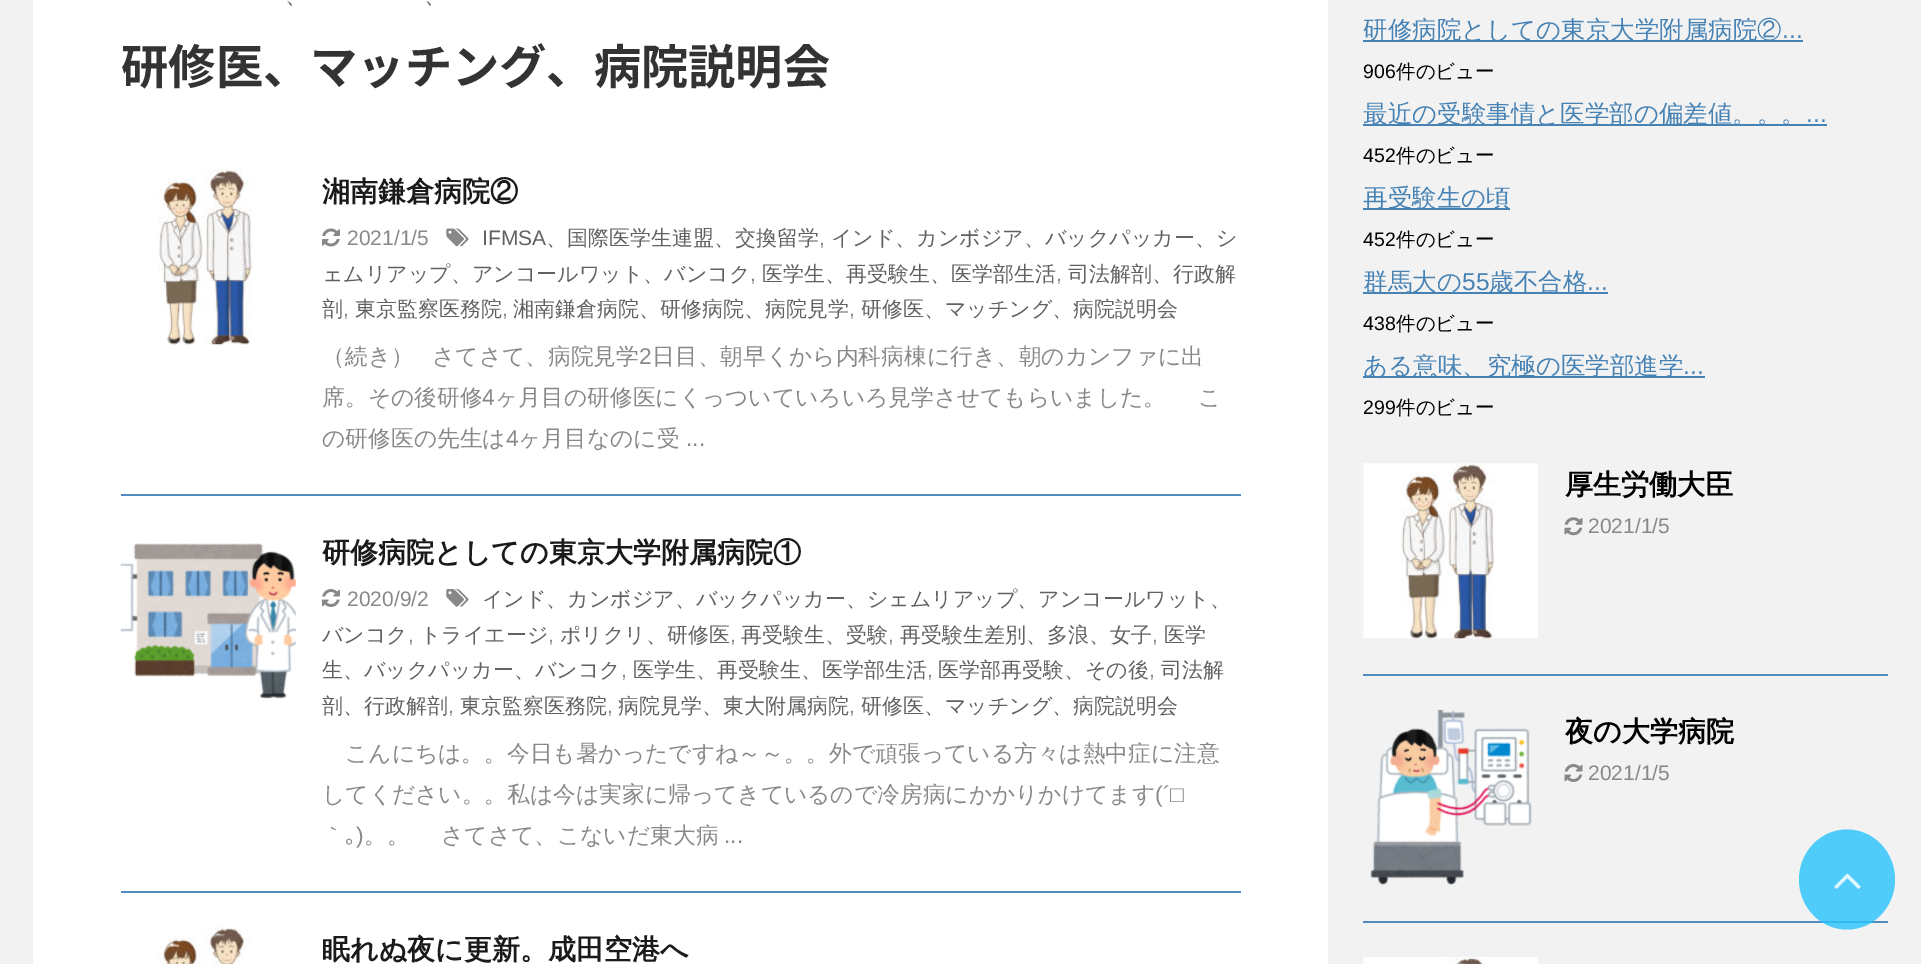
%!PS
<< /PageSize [1921 964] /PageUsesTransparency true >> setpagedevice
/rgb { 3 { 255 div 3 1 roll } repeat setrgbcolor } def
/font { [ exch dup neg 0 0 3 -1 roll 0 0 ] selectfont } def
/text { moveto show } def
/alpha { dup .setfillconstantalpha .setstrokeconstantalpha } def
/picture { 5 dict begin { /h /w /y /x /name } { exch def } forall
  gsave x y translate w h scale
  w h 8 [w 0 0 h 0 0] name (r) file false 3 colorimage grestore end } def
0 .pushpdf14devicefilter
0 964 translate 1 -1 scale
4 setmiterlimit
242 242 242 rgb
0 0 1921 964 rectfill
255 255 255 rgb
33 0 1295 964 rectfill
82 140 191 rgb
121 494 1120 2 rectfill
(img_01.rgb) 158 169 94 176 picture
(img_02.rgb) 446 228 23 19 picture
(img_03.rgb) 322 228 18 19 picture
121 891 1120 2 rectfill
(img_04.rgb) 120 543 176 156 picture
(img_05.rgb) 446 589 23 18 picture
(img_06.rgb) 322 589 18 18 picture
(img_07.rgb) 158 927 93 37 picture
70 130 180 rgb
1363 40 440 2 rectfill
1363 124 464 2 rectfill
1363 208 147 2 rectfill
1363 292 245 2 rectfill
1363 376 342 2 rectfill
82 140 191 rgb
1363 674 525 2 rectfill
(img_08.rgb) 1363 463 175 176 picture
(img_09.rgb) 1564 517 19 19 picture
1363 921 525 2 rectfill
(img_10.rgb) 1370 710 162 175 picture
(img_11.rgb) 1564 764 19 18 picture
(img_12.rgb) 1363 957 175 7 picture
0.8 alpha
40 195 252 rgb
1847 829.5 moveto 26.5 0 48 22.5 48 50 rcurveto 0 27.5 -21.5 50 -48 50 rcurveto -26.5 0 -48 -22.5 -48 -50 rcurveto 0 -27.5 21.5 -50 48 -50 rcurveto closepath fill
1 alpha
(img_13.rgb) 1834 873 27 16 picture
/WenQuanYiZenHei-Medium 22.75 font
97 97 97 rgb
(、) 285 3 text
(、) 424 3 text
/NotoSansJP-Bold 47.25 font
51 51 51 rgb
(研修医、マッチング、病院説明会) 121 84 text
/WenQuanYiZenHei-Bold 28 font
26 26 26 rgb
(湘南鎌倉病院②) 322 201 text
/LiberationSans-Regular 21 font
97 97 97 rgb
(IFMSA) 482 245 text
/WenQuanYiZenHei-Medium 21 font
(、国際医学生連盟、交換留学) 546 245 text
/LiberationSans-Regular 21 font
136 136 136 rgb
(,) 819 245 text
/WenQuanYiZenHei-Medium 21 font
97 97 97 rgb
(インド、カンボジア、バックパッカー、シ) 831 245 text
(ェムリアップ、アンコールワット、バンコク) 322 281 text
/LiberationSans-Regular 21 font
136 136 136 rgb
(,) 750 281 text
/WenQuanYiZenHei-Medium 21 font
97 97 97 rgb
(医学生、再受験生、医学部生活) 762 281 text
/LiberationSans-Regular 21 font
136 136 136 rgb
(,) 1056 281 text
/WenQuanYiZenHei-Medium 21 font
97 97 97 rgb
(司法解剖、行政解) 1068 281 text
(剖) 322 316 text
/LiberationSans-Regular 21 font
136 136 136 rgb
(,) 343 316 text
/WenQuanYiZenHei-Medium 21 font
97 97 97 rgb
(東京監察医務院) 355 316 text
/LiberationSans-Regular 21 font
136 136 136 rgb
(,) 502 316 text
/WenQuanYiZenHei-Medium 21 font
97 97 97 rgb
(湘南鎌倉病院、研修病院、病院見学) 513 316 text
/LiberationSans-Regular 21 font
136 136 136 rgb
(,) 849 316 text
/WenQuanYiZenHei-Medium 21 font
97 97 97 rgb
(研修医、マッチング、病院説明会) 861 316 text
/LiberationSans-Regular 21 font
136 136 136 rgb
(2021/1/5) 347 245 text
/WenQuanYiZenHei-Medium 22.75 font
(（続き）) 322 364 text
(さてさて、病院見学) 432 364 text
/LiberationSans-Regular 22.75 font
(2) 639 364 text
/WenQuanYiZenHei-Medium 22.75 font
(日目、朝早くから内科病棟に行き、朝のカンファに出) 652 364 text
(席。その後研修) 322 405 text
/LiberationSans-Regular 22.75 font
(4) 482 405 text
/WenQuanYiZenHei-Medium 22.75 font
(ヶ月目の研修医にくっついていろいろ見学させてもらいました。) 495 405 text
(こ) 1198 405 text
(の研修医の先生は) 322 446 text
/LiberationSans-Regular 22.75 font
(4) 506 446 text
/WenQuanYiZenHei-Medium 22.75 font
(ヶ月目なのに受) 518 446 text
/LiberationSans-Regular 22.75 font
(...) 686 446 text
/WenQuanYiZenHei-Bold 28 font
26 26 26 rgb
(研修病院としての東京大学附属病院①) 322 562 text
/WenQuanYiZenHei-Medium 21 font
97 97 97 rgb
(インド、カンボジア、バックパッカー、シェムリアップ、アンコールワット、) 482 606 text
(バンコク) 322 642 text
/LiberationSans-Regular 21 font
136 136 136 rgb
(,) 408 642 text
/WenQuanYiZenHei-Medium 21 font
97 97 97 rgb
(トライエージ) 420 642 text
/LiberationSans-Regular 21 font
136 136 136 rgb
(,) 548 642 text
/WenQuanYiZenHei-Medium 21 font
97 97 97 rgb
(ポリクリ、研修医) 560 642 text
/LiberationSans-Regular 21 font
136 136 136 rgb
(,) 730 642 text
/WenQuanYiZenHei-Medium 21 font
97 97 97 rgb
(再受験生、受験) 741 642 text
/LiberationSans-Regular 21 font
136 136 136 rgb
(,) 888 642 text
/WenQuanYiZenHei-Medium 21 font
97 97 97 rgb
(再受験生差別、多浪、女子) 900 642 text
/LiberationSans-Regular 21 font
136 136 136 rgb
(,) 1152 642 text
/WenQuanYiZenHei-Medium 21 font
97 97 97 rgb
(医学) 1164 642 text
(生、バックパッカー、バンコク) 322 677 text
/LiberationSans-Regular 21 font
136 136 136 rgb
(,) 621 677 text
/WenQuanYiZenHei-Medium 21 font
97 97 97 rgb
(医学生、再受験生、医学部生活) 633 677 text
/LiberationSans-Regular 21 font
136 136 136 rgb
(,) 927 677 text
/WenQuanYiZenHei-Medium 21 font
97 97 97 rgb
(医学部再受験、その後) 938 677 text
/LiberationSans-Regular 21 font
136 136 136 rgb
(,) 1149 677 text
/WenQuanYiZenHei-Medium 21 font
97 97 97 rgb
(司法解) 1161 677 text
(剖、行政解剖) 322 713 text
/LiberationSans-Regular 21 font
136 136 136 rgb
(,) 448 713 text
/WenQuanYiZenHei-Medium 21 font
97 97 97 rgb
(東京監察医務院) 460 713 text
/LiberationSans-Regular 21 font
136 136 136 rgb
(,) 607 713 text
/WenQuanYiZenHei-Medium 21 font
97 97 97 rgb
(病院見学、東大附属病院) 618 713 text
/LiberationSans-Regular 21 font
136 136 136 rgb
(,) 849 713 text
/WenQuanYiZenHei-Medium 21 font
97 97 97 rgb
(研修医、マッチング、病院説明会) 861 713 text
/LiberationSans-Regular 21 font
136 136 136 rgb
(2020/9/2) 347 606 text
/WenQuanYiZenHei-Medium 22.75 font
(こんにちは。。今日も暑かったですね～～。。外で頑張っている方々は熱中症に注意) 345 761 text
(してください。。私は今は実家に帰ってきているので冷房病にかかりかけてます) 322 802 text
/LiberationSans-Regular 22.75 font
(\(´□) 1155 802 text
/WenQuanYiZenHei-Medium 22.75 font
(｀) 322 843 text
/IPAPGothic-Regular 22.75 font
(｡) 345 843 text
/LiberationSans-Regular 22.75 font
(\)) 356 843 text
/WenQuanYiZenHei-Medium 22.75 font
(。。) 364 843 text
(さてさて、こないだ東大病) 441 843 text
/LiberationSans-Regular 22.75 font
(...) 724 843 text
/WenQuanYiZenHei-Bold 28 font
26 26 26 rgb
(眠れぬ夜に更新。成田空港へ) 322 959 text
/WenQuanYiZenHei-Medium 24.5 font
70 130 180 rgb
(研修病院としての東京大学附属病院②) 1363 38 text
/LiberationSans-Regular 24.5 font
(...) 1782 38 text
/LiberationSans-Regular 19.5 font
0 0 0 rgb
(906) 1363 78 text
/WenQuanYiZenHei-Medium 19.5 font
(件のビュー) 1396 78 text
/WenQuanYiZenHei-Medium 24.5 font
70 130 180 rgb
(最近の受験事情と医学部の偏差値。。。) 1363 122 text
/LiberationSans-Regular 24.5 font
(...) 1806 122 text
/LiberationSans-Regular 19.5 font
0 0 0 rgb
(452) 1363 162 text
/WenQuanYiZenHei-Medium 19.5 font
(件のビュー) 1396 162 text
/WenQuanYiZenHei-Medium 24.5 font
70 130 180 rgb
(再受験生の頃) 1363 206 text
/LiberationSans-Regular 19.5 font
0 0 0 rgb
(452) 1363 246 text
/WenQuanYiZenHei-Medium 19.5 font
(件のビュー) 1396 246 text
/WenQuanYiZenHei-Medium 24.5 font
70 130 180 rgb
(群馬大の) 1363 290 text
/LiberationSans-Regular 24.5 font
(55) 1462 290 text
/WenQuanYiZenHei-Medium 24.5 font
(歳不合格) 1489 290 text
/LiberationSans-Regular 24.5 font
(...) 1587 290 text
/LiberationSans-Regular 19.5 font
0 0 0 rgb
(438) 1363 330 text
/WenQuanYiZenHei-Medium 19.5 font
(件のビュー) 1396 330 text
/WenQuanYiZenHei-Medium 24.5 font
70 130 180 rgb
(ある意味、究極の医学部進学) 1363 374 text
/LiberationSans-Regular 24.5 font
(...) 1683 374 text
/LiberationSans-Regular 19.5 font
0 0 0 rgb
(299) 1363 414 text
/WenQuanYiZenHei-Medium 19.5 font
(件のビュー) 1396 414 text
/WenQuanYiZenHei-Bold 28 font
(厚生労働大臣) 1565 494 text
/LiberationSans-Regular 21 font
136 136 136 rgb
(2021/1/5) 1588 533 text
/WenQuanYiZenHei-Bold 28 font
0 0 0 rgb
(夜の大学病院) 1565 741 text
/LiberationSans-Regular 21 font
136 136 136 rgb
(2021/1/5) 1588 780 text
.poppdf14devicefilter showpage
